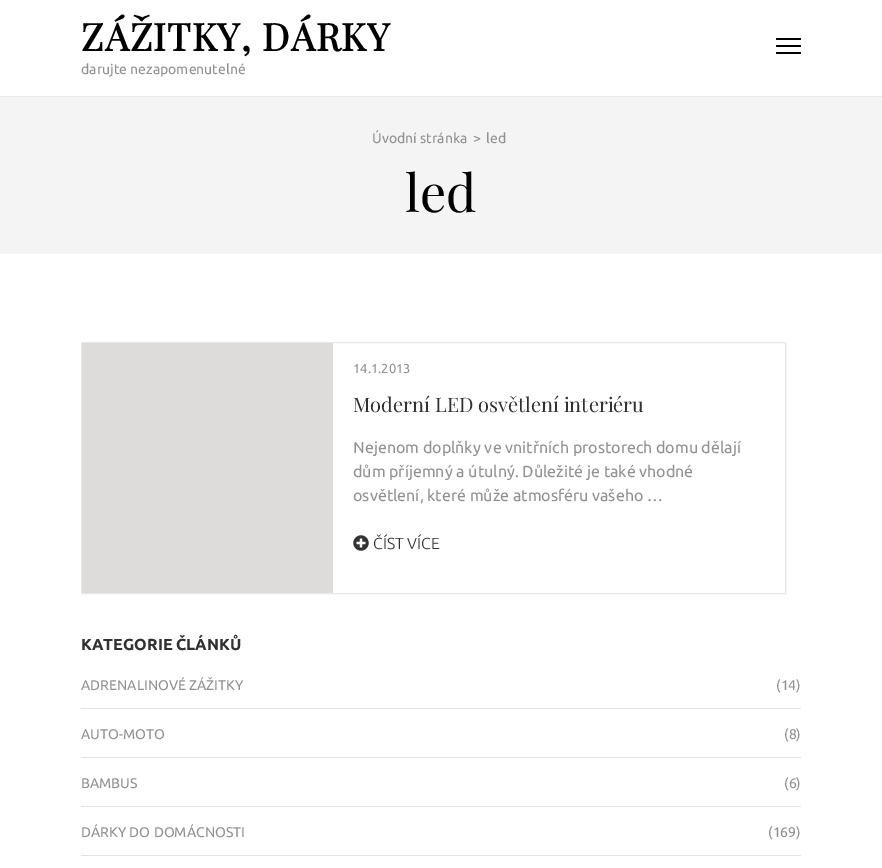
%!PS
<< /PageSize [882 868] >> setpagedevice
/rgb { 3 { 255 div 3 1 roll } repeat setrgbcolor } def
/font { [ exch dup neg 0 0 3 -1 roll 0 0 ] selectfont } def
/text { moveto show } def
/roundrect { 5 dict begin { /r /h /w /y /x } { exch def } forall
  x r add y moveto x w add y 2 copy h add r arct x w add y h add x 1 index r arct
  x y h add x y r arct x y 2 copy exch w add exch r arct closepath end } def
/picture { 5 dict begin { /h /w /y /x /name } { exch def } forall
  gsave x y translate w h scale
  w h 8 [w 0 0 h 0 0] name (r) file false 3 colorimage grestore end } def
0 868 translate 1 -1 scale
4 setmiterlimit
255 255 255 rgb
0 0 882 868 rectfill
0 0 0 rgb
776 38 25 2 1 roundrect fill
776 45 25 2 1 roundrect fill
776 52 25 2 1 roundrect fill
244 244 244 rgb
0 97 882 157 rectfill
235 235 235 rgb
0 96 882 1 rectfill
232 232 232 rgb
81.5 342.5 704 251 rectstroke
222 219 219 rgb
82 343 251 250 rectfill
(img_01.rgb) 353 535 16 16 picture
227 227 227 rgb
81 708 720 1 rectfill
81 757 720 1 rectfill
81 806 720 1 rectfill
81 855 720 1 rectfill
/PlayfairDisplay-Bold 38 font
0 0 0 rgb
81 51 moveto 1 0 (ZÁŽITKY, DÁRKY) ashow
/Ubuntu-Regular 14 font
145 145 145 rgb
(darujte nezapomenutelné) 81 74 text
(Úvodní stránka) 372 143 text
(>) 473 143 text
(led) 486 143 text
/PlayfairDisplay-Regular 52 font
0 0 0 rgb
(led) 405 212 text
/Ubuntu-Regular 13 font
145 145 145 rgb
(14.1.2013) 353 373 text
/PlayfairDisplay-Regular 20 font
49 49 49 rgb
(Moderní LED osvětlení interiéru) 353 412 text
/Ubuntu-Regular 16 font
145 145 145 rgb
(Nejenom doplňky ve vnitřních prostorech domu dělají) 353 453 text
(dům příjemný a útulný. Důležité je také vhodné) 353 477 text
(osvětlení, které může atmosféru vašeho …) 353 501 text
/Ubuntu-Light 16 font
49 49 49 rgb
(ČÍST VÍCE) 373 549 text
/Ubuntu-Bold 16 font
(KATEGORIE ČLÁNKŮ) 81 650 text
/Ubuntu-Regular 14 font
145 145 145 rgb
(ADRENALINOVÉ ZÁŽITKY) 81 690 text
(\(14\)) 776 690 text
(AUTO-MOTO) 81 739 text
(\(8\)) 784 739 text
(BAMBUS) 81 788 text
(\(6\)) 784 788 text
(DÁRKY DO DOMÁCNOSTI) 81 837 text
(\(169\)) 768 837 text
showpage
